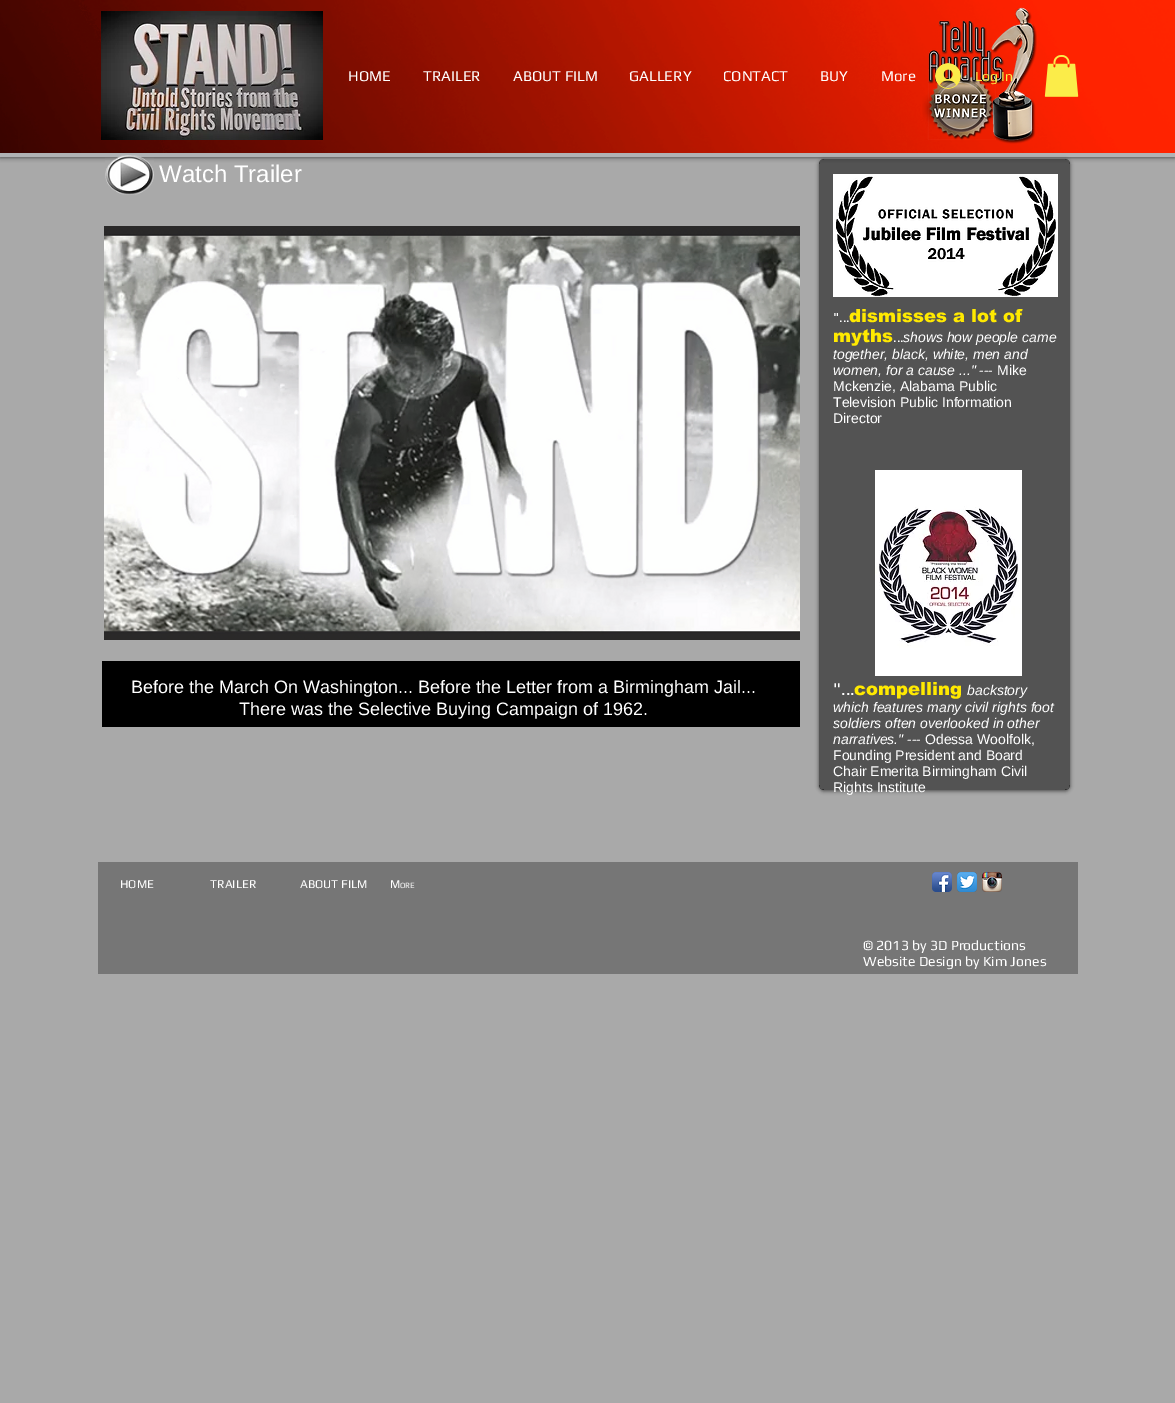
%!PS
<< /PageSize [1175 1403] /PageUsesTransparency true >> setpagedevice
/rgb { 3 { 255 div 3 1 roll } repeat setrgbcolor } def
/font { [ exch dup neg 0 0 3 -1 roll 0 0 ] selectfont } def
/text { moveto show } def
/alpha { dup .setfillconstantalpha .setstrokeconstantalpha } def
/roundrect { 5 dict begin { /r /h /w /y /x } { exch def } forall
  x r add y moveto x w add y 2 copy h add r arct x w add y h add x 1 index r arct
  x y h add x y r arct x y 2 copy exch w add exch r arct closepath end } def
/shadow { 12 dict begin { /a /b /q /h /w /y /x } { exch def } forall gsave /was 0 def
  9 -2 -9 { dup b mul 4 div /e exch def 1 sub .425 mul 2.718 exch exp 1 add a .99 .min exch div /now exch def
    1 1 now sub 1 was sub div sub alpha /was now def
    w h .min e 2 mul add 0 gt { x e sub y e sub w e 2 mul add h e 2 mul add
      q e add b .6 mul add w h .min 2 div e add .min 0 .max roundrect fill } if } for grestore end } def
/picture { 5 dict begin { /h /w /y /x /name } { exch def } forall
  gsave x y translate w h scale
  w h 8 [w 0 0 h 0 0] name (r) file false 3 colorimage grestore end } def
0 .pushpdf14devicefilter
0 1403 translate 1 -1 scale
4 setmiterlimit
169 169 169 rgb
0 0 1175 1403 rectfill
0 0 0 rgb
0 0 1175 157 0 2.5 0.7 shadow
176 178 180 rgb
0 153 1175 4 rectfill
(img_01.rgb) 0 0 1175 153 picture
(img_02.rgb) 101 11 222 129 picture
(img_03.rgb) 922 7 115 137 picture
(img_04.rgb) 1044 55 35 42 picture
(img_05.rgb) 935 63 26 26 picture
(img_06.rgb) 105 155 49 40 picture
gsave
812 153 moveto 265 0 rlineto 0 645 rlineto -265 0 rlineto closepath 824 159 moveto 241 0 rlineto 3 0 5 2 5 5 rcurveto 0 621 rlineto 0 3 -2 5 -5 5 rcurveto -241 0 rlineto -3 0 -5 -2 -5 -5 rcurveto 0 -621 rlineto 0 -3 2 -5 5 -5 rcurveto closepath eoclip newpath
0 0 0 rgb
819 160 251 631 5 2 0.6 shadow
grestore
0.51 alpha
0 0 0 rgb
819 159 251 631 5 roundrect fill
1 alpha
(img_07.rgb) 104 226 696 414 picture
(img_08.rgb) 833 174 225 123 picture
(img_09.rgb) 875 470 147 206 picture
102 661 698 66 rectfill
118 118 118 rgb
98 862 980 112 rectfill
(img_10.rgb) 932 872 20 20 picture
(img_11.rgb) 957 872 20 20 picture
(img_12.rgb) 982 872 20 20 picture
/Play-Regular 15 font
255 255 255 rgb
(HOME) 348 81 text
(TRAILER) 423 81 text
(ABOUT FILM) 513 81 text
(GALLERY) 629 81 text
(CONTACT) 723 81 text
(BUY) 820 81 text
(More) 881 81 text
/Play-Regular 14 font
251 236 73 rgb
(Log In) 975 81 text
/LiberationSans-Regular 24 font
255 255 255 rgb
(Watch Trailer) 159 182 text
/Play-Regular 14 font
("...) 833 322 text
/arial-Black 18 font
255 233 0 rgb
(dismisses a lot of) 849 322 text
(myths) 833 342 text
/Play-Regular 14 font
255 255 255 rgb
(...) 893 342 text
/LiberationSans-Italic 14 font
(shows how people came) 903 342 text
(together, black, white, men and) 833 359 text
(women, for a cause ...") 833 375 text
/LiberationSans-Regular 14 font
(--- Mike) 979 375 text
(Mckenzie, Alabama Public) 833 391 text
(Television Public Information) 833 407 text
(Director) 833 423 text
/LiberationSans-Regular 18 font
(Before the March On Washington... Before the Letter from a Birmingham Jail...) 131 693 text
(There was the Selective Buying Campaign of 1962.) 239 715 text
/Play-Regular 18 font
("...) 833 695 text
/arial-Black 18 font
255 233 0 rgb
(compelling) 854 695 text
/LiberationSans-Italic 14 font
255 255 255 rgb
(backstory) 967 695 text
(which features many civil rights foot) 833 712 text
(soldiers often overlooked in other) 833 728 text
(narratives.") 833 744 text
/LiberationSans-Regular 14 font
(--- Odessa Woolfolk,) 907 744 text
(Founding President and Board) 833 760 text
(Chair Emerita Birmingham Civil) 833 776 text
(Rights Institute) 833 792 text
/Play-Regular 12 font
(HOME) 120 888 text
(TRAILER) 210 888 text
(ABOUT FILM) 300 888 text
(M) 390 888 text
/Play-Regular 8 font
(ORE) 400 888 text
/Play-Regular 14 font
(© 2013 by 3D Productions) 863 950 text
(Website Design by Kim Jones) 863 966 text
.poppdf14devicefilter showpage
